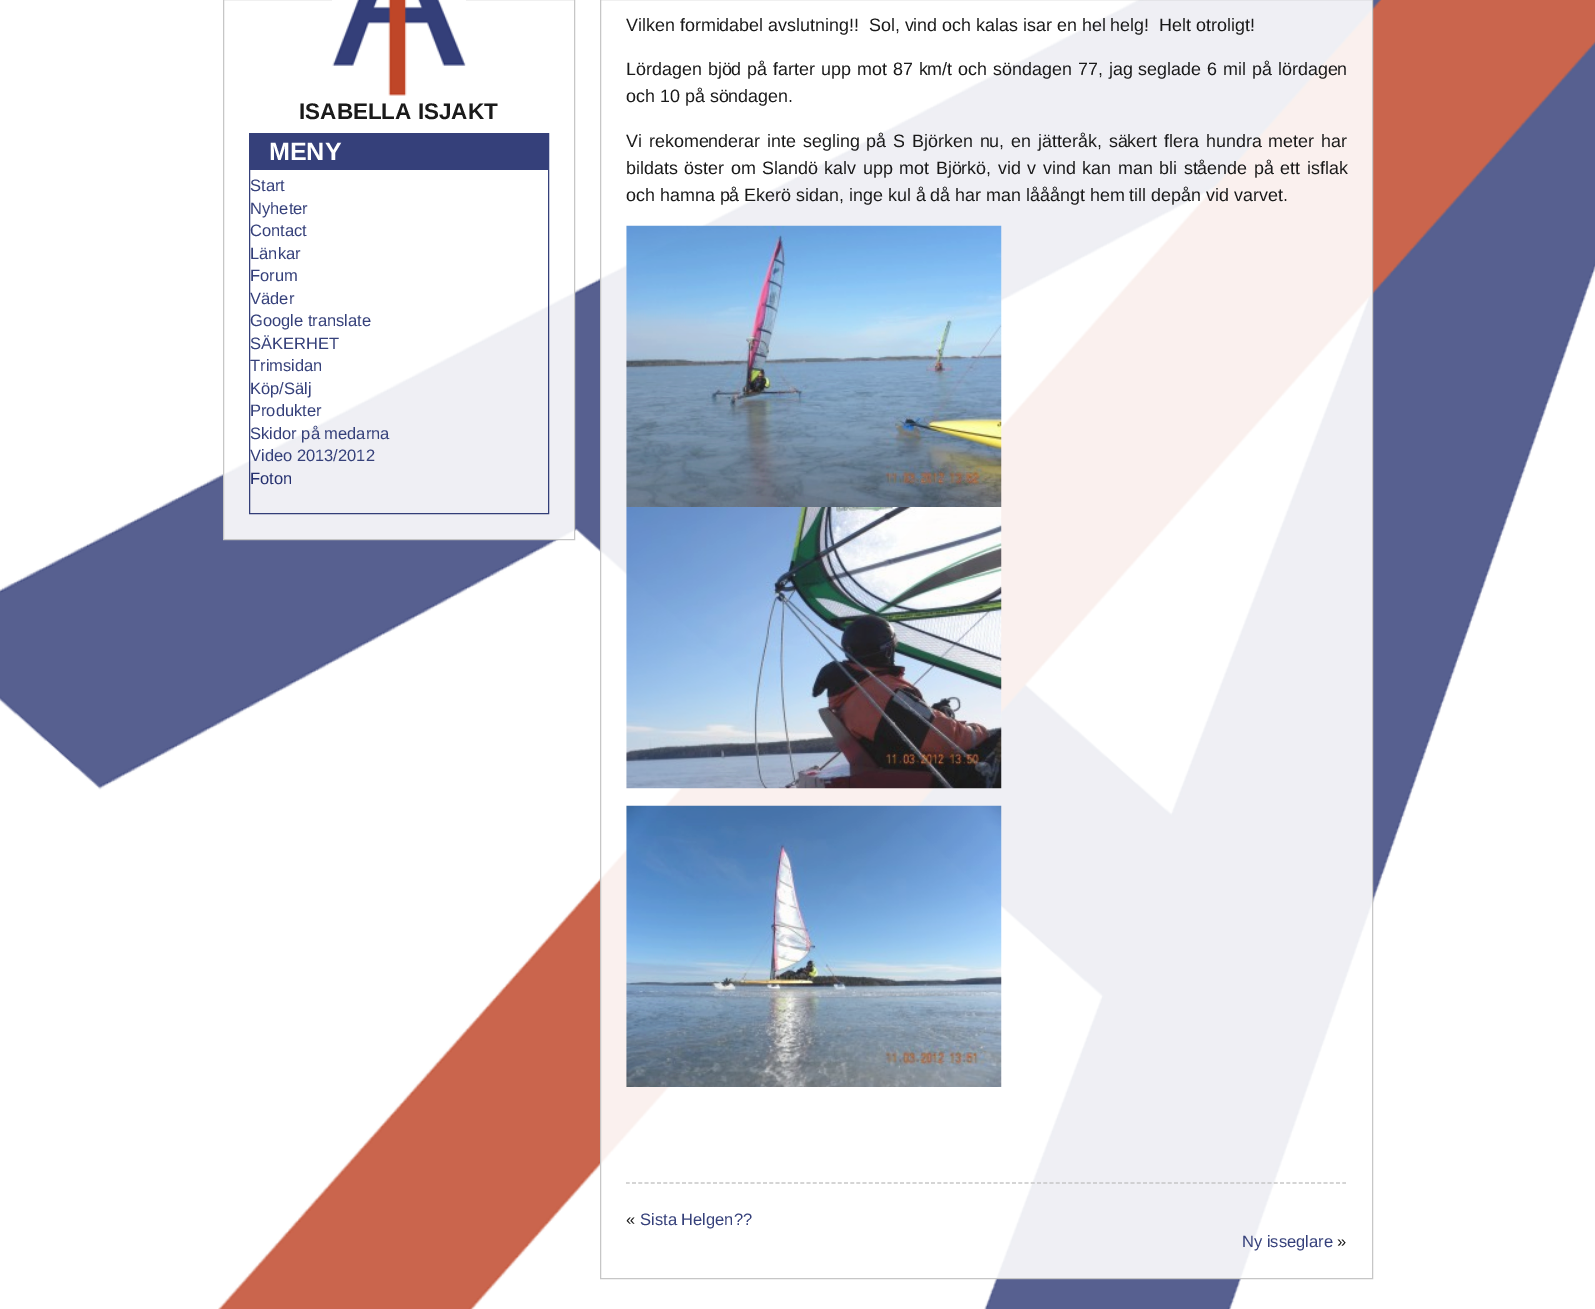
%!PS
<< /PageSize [1595 1309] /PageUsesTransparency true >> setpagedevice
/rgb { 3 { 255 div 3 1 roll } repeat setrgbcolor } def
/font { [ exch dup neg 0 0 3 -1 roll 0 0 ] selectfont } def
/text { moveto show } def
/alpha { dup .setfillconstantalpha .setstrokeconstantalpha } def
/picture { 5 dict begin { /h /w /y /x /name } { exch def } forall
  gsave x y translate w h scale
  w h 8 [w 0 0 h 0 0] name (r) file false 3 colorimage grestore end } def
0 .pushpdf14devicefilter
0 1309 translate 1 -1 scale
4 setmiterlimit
255 255 255 rgb
0 0 1595 1309 rectfill
(img_01.rgb) 0 0 1595 1309 picture
0.9 alpha
223 290 352 250 rectfill
192 192 192 rgb
223.5 -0.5 351 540 rectstroke
1 alpha
(img_02.rgb) 332 0 134 96 picture
0.9 alpha
31 43 107 rgb
249.5 133.5 299 380 rectstroke
1 alpha
53 64 122 rgb
250 134 298 36 rectfill
0.9 alpha
255 255 255 rgb
600 0 773 1279 rectfill
192 192 192 rgb
600.5 -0.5 772 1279 rectstroke
1.2 setlinewidth
[3.75 2.48] 0 setdash
626 1183 moveto 720 0 rlineto stroke
1 alpha
(img_03.rgb) 626 225 376 282 picture
(img_04.rgb) 626 507 376 282 picture
(img_05.rgb) 626 805 376 282 picture
/LiberationSans-Bold 22.5 font
26 26 26 rgb
(ISABELLA ISJAKT) 299 119 text
/LiberationSans-Bold 25 font
255 255 255 rgb
(MENY) 269 160 text
/LiberationSans-Regular 16.5 font
53 64 122 rgb
(Start) 250 191 text
(Nyheter) 250 214 text
(Contact) 250 236 text
(Länkar) 250 259 text
(Forum) 250 281 text
(Väder) 250 304 text
(Google translate) 250 326 text
(SÄKERHET) 250 349 text
(Trimsidan) 250 371 text
(Köp/Sälj) 250 394 text
(Produkter) 250 416 text
(Skidor på medarna) 250 439 text
(Video 2013/2012) 250 461 text
37 48 111 rgb
(Foton) 250 484 text
/LiberationSans-Regular 17.9 font
26 26 26 rgb
(Vilken formidabel avslutning!!  Sol, vind och kalas isar en hel helg!  Helt otroligt!) 626 31 text
626 75 moveto 1 0 32 (Lördagen bjöd på farter upp mot 87 km/t och söndagen 77, jag seglade 6 mil på lördagen) widthshow
(och 10 på söndagen.) 626 102 text
626 147 moveto 1.9 0 32 (Vi rekomenderar inte segling på S Björken nu, en jätteråk, säkert flera hundra meter har) widthshow
626 174 moveto 1.6 0 32 (bildats öster om Slandö kalv upp mot Björkö, vid v vind kan man bli stående på ett isflak) widthshow
(och hamna på Ekerö sidan, inge kul å då har man lååångt hem till depån vid varvet.) 626 201 text
/LiberationSans-Regular 16.5 font
(«) 626 1225 text
53 64 122 rgb
(Sista Helgen??) 640 1225 text
(Ny isseglare) 1242 1247 text
26 26 26 rgb
(») 1337 1247 text
.poppdf14devicefilter showpage
